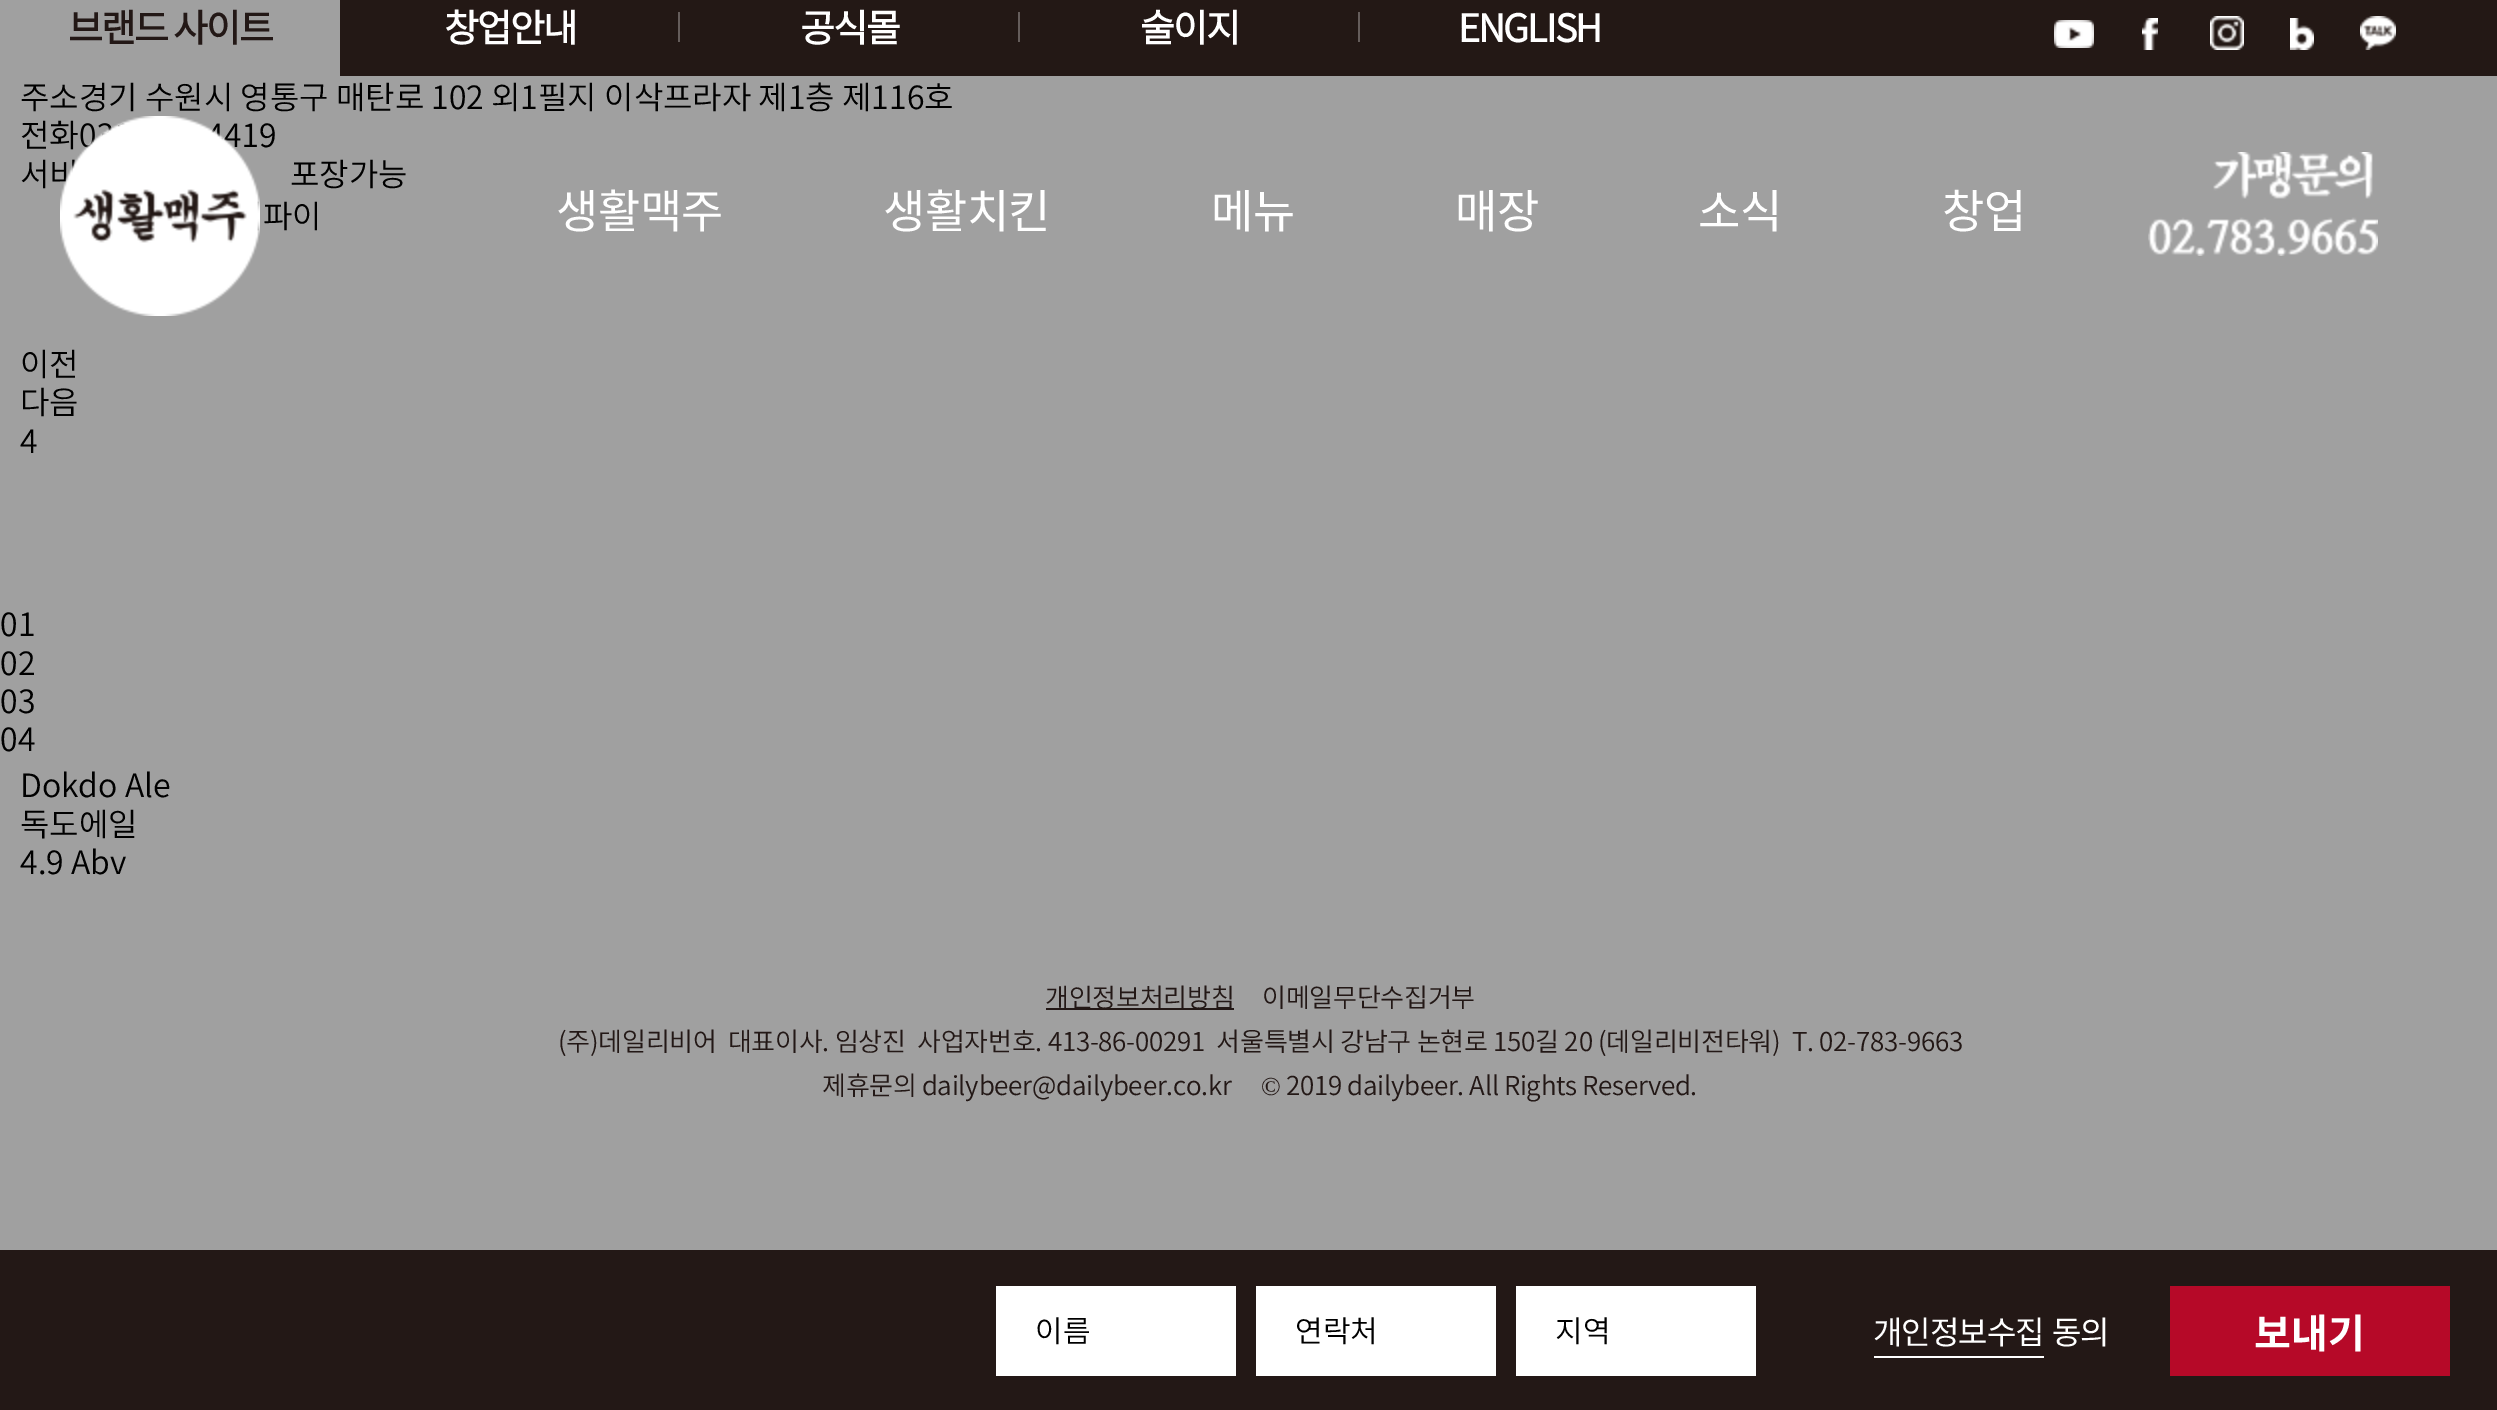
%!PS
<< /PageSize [2497 1410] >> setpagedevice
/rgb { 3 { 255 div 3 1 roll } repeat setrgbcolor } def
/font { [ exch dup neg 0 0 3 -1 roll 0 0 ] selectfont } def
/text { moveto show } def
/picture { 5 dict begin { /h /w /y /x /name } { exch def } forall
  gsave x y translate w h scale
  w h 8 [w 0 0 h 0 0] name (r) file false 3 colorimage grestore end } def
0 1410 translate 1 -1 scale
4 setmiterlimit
160 160 160 rgb
0 0 2497 1410 rectfill
35 24 21 rgb
340 0 2157 76 rectfill
101 93 91 rgb
678 12 2 30 rectfill
1018 12 2 30 rectfill
1358 12 2 30 rectfill
(img_01.rgb) 2054 20 40 28 picture
(img_02.rgb) 2142 18 16 32 picture
(img_03.rgb) 2210 16 34 34 picture
(img_04.rgb) 2290 18 24 32 picture
(img_05.rgb) 2360 16 36 34 picture
35 24 22 rgb
1046 1008 188 2 rectfill
(img_07.rgb) 2148 152 230 104 picture
0 1250 2497 160 rectfill
255 255 255 rgb
996 1286 240 90 rectfill
1256 1286 240 90 rectfill
1516 1286 240 90 rectfill
1874 1356 170 2 rectfill
182 9 40 rgb
2170 1286 280 90 rectfill
/NotoSansKR-Bold 38 font
35 24 22 rgb
68 42 moveto -2 0 (브랜드 사이트) ashow
255 255 255 rgb
444 42 moveto -2 0 (창업안내) ashow
800 42 moveto -2 0 (공식몰) ashow
1140 42 moveto -2 0 (술이지) ashow
1458 42 moveto -2 0 (ENGLISH) ashow
/NotoSansKR-Light 32 font
0 0 0 rgb
(주소경기 수원시 영통구 매탄로 102 외1필지 이삭프라자 제1층 제116호) 20 109 text
(전화) 20 147 text
(419) 224 147 text
(서비) 20 186 text
(포장가능) 290 186 text
(파이) 263 228 text
(01) 0 636 text
(02) 0 675 text
(03) 0 713 text
(04) 0 751 text
(이전) 20 376 text
(다음) 20 414 text
(4) 20 453 text
(Dokdo Ale) 20 797 text
(독도에일) 20 836 text
(4.9 Abv) 20 874 text
/NotoSansKR-Light 26 font
35 24 22 rgb
1045 1007 moveto -0.25 0 (개인정보처리방침) ashow
1262 1007 moveto -0.25 0 (이메일무단수집거부) ashow
558 1051 moveto -0.25 0 (\(주\)데일리비어  대표이사. 임상진  사업자번호. 413-86-00291  서울특별시 강남구 논현로 150길 20 \(데일리비전타워\)  T. 02-783-9663) ashow
822 1095 moveto -0.5 0 32 -0.25 0 (제휴문의 dailybeer@dailybeer.co.kr) awidthshow
/LiberationSerif-Regular 26 font
1261 1095 moveto -0.25 0 (©) ashow
/NotoSansKR-Light 26 font
1286 1095 moveto -0.5 0 32 -0.25 0 (2019 dailybeer. All Rights Reserved.) awidthshow
(img_06.rgb) 60 116 200 200 picture
/NotoSansKR-Regular 46 font
255 255 255 rgb
556 228 moveto -0.5 0 (생활맥주) ashow
883 228 moveto -0.5 0 (생활치킨) ashow
1211 228 moveto -0.5 0 (메뉴) ashow
1455 228 moveto -0.5 0 (매장) ashow
1698 228 moveto -0.5 0 (소식) ashow
1942 228 moveto -0.5 0 (창업) ashow
/NotoSansKR-Light 30 font
0 0 0 rgb
(이름) 1035 1342 text
(연락처) 1295 1342 text
(지역) 1555 1342 text
/NotoSansKR-Regular 32 font
255 255 255 rgb
1873 1344 moveto -1 0 (개인정보수집) ashow
2052 1344 moveto -1 0 (동의) ashow
/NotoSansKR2-Bold 40 font
(보내기) 2254 1348 text
showpage
